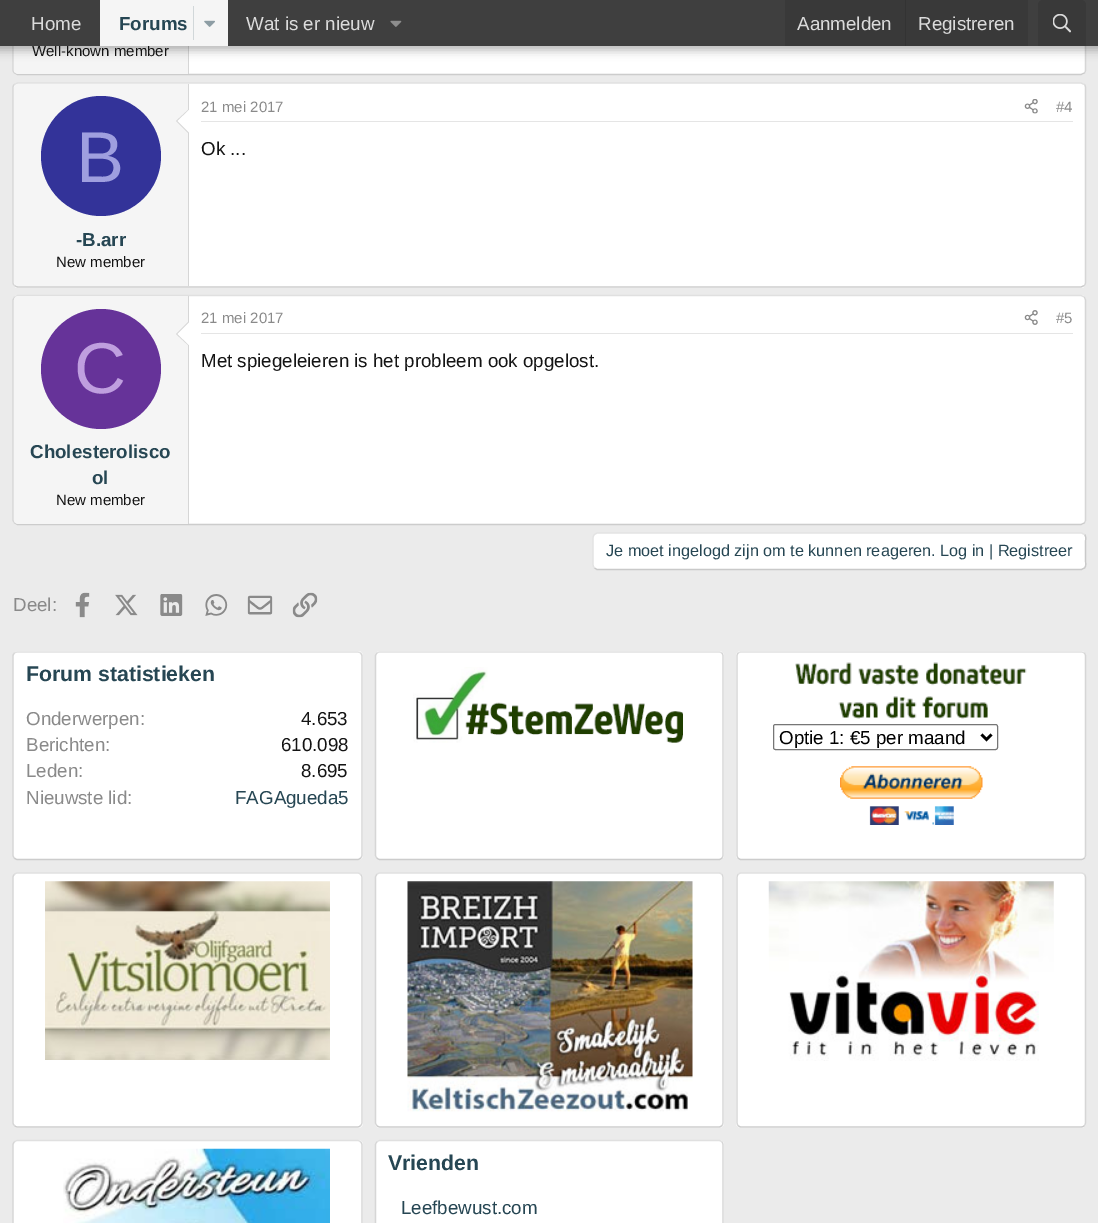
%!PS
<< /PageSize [1098 1223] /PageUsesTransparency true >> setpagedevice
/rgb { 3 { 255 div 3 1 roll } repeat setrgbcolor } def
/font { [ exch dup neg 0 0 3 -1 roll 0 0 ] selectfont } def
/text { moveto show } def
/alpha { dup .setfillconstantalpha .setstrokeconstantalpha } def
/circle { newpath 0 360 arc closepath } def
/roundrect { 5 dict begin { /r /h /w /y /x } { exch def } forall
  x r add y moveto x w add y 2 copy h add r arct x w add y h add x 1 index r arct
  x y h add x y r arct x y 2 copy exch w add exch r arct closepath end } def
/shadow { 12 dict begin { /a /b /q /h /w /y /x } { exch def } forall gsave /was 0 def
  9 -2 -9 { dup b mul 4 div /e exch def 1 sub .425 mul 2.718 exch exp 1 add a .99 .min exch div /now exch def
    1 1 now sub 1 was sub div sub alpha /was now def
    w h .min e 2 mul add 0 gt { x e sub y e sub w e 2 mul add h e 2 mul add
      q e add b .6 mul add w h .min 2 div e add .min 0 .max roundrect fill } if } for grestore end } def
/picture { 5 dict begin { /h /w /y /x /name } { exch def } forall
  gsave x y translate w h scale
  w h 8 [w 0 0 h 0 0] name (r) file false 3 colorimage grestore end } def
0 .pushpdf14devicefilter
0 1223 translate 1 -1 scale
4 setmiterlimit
235 235 235 rgb
0 0 1098 1223 rectfill
255 255 255 rgb
13 -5 1073 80 5 roundrect fill
214 214 214 rgb
1.2 setlinewidth
1084.5 -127 moveto 0.5 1 1 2 1 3 rcurveto 0 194 rlineto 0 1 -0.5 2.5 -1 3 rcurveto stroke
204 204 204 rgb
1084.5 73 moveto -3.5 1.5 rlineto -1063.5 0 rlineto -3 -1.5 rlineto stroke
214 214 214 rgb
14.5 73 moveto -1 -0.5 -1.5 -2 -1.5 -3 rcurveto 0 -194 rlineto 0 -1 0.5 -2 1.5 -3 rcurveto stroke
245 245 245 rgb
18 -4 moveto 171 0 rlineto 0 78 rlineto -171 0 rlineto -2 0 -4 -2 -4 -4 rcurveto 0 -70 rlineto 0 -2 2 -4 4 -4 rcurveto closepath fill
214 214 214 rgb
188 46 1 28 rectfill
0 0 0 rgb
-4 -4 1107 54 0 5 0.3 shadow
255 255 255 rgb
13 83 1073 205 5 roundrect fill
224 224 224 rgb
14.5 84.5 moveto 3 -1.5 rlineto 1063.5 0 rlineto 3.5 1.5 rlineto stroke
214 214 214 rgb
1084.5 84.5 moveto 0.5 0.5 1 2 1 3 rcurveto 0 195 rlineto 0 1 -0.5 2.5 -1 3 rcurveto stroke
204 204 204 rgb
1084.5 285.5 moveto -3.5 1.5 rlineto -1063.5 0 rlineto -3 -1.5 rlineto stroke
214 214 214 rgb
14.5 285.5 moveto -1 -0.5 -1.5 -2 -1.5 -3 rcurveto 0 -195 rlineto 0 -1 0.5 -2.5 1.5 -3 rcurveto stroke
245 245 245 rgb
18 84 moveto 171 0 rlineto 0 202 rlineto -171 0 rlineto -2 0 -4 -2 -4 -4 rcurveto 0 -194 rlineto 0 -2 2 -4 4 -4 rcurveto closepath fill
214 214 214 rgb
188 84 1 202 rectfill
189 109 moveto 0 25 rlineto -13 -13 rlineto closepath fill
255 255 255 rgb
189 110 moveto 0 22.5 rlineto -11.5 -11.5 rlineto closepath fill
51 51 153 rgb
101 156 60 circle fill
229 229 229 rgb
201 121 872 1 rectfill
(img_04.rgb) 1024 99 14 15 picture
255 255 255 rgb
13 295 1073 230 5 roundrect fill
224 224 224 rgb
14.5 297 moveto 3 -1.5 rlineto 1063.5 0 rlineto 3.5 1.5 rlineto stroke
214 214 214 rgb
1084.5 297 moveto 1 3 rlineto 0 220.5 rlineto -1 2.5 rlineto stroke
204 204 204 rgb
1084.5 523 moveto -3.5 1.5 rlineto -1063.5 0 rlineto -3 -1.5 rlineto stroke
214 214 214 rgb
14.5 523 moveto -1.5 -2.5 rlineto 0 -184 rlineto 0 -36.5 rlineto 1.5 -3 rlineto stroke
245 245 245 rgb
18 296 moveto 171 0 rlineto 0 228 rlineto -171 0 rlineto -2 0 -4 -2 -4 -4 rcurveto 0 -220 rlineto 0 -2 2 -4 4 -4 rcurveto closepath fill
214 214 214 rgb
188 296 1 228 rectfill
189 321 moveto 0 25 rlineto -13 -12 rlineto closepath fill
255 255 255 rgb
189 322.5 moveto 0 22.5 rlineto -11.5 -11 rlineto closepath fill
102 51 153 rgb
101 369 60 circle fill
229 229 229 rgb
201 333 872 1 rectfill
(img_05.rgb) 1024 310 14 15 picture
255 255 255 rgb
593 533 493 37 5 roundrect fill
201 201 201 rgb
1084.5 534.5 moveto 2 2 1 5 1 7.5 rcurveto 0 18.5 rlineto 0 2.5 1 5.5 -1 7.5 rcurveto -3 1.5 rlineto -242 0 rlineto -242.5 0 rlineto -2.5 -1.5 rlineto stroke
227 227 227 rgb
594.5 568 moveto -2 -2 -1.5 -5 -1.5 -7.5 rcurveto 0 -18.5 rlineto 0 -2.5 -0.5 -5.5 1.5 -7.5 rcurveto 2.5 -1.5 rlineto 242.5 0 rlineto 242 0 rlineto 3 1.5 rlineto stroke
(img_06.rgb) 75 592 15 26 picture
(img_07.rgb) 115 594 23 22 picture
(img_08.rgb) 160 594 23 22 picture
(img_09.rgb) 205 594 23 22 picture
(img_10.rgb) 247 595 26 20 picture
(img_11.rgb) 292 592 26 26 picture
255 255 255 rgb
13 651 350 209 5 roundrect fill
224 224 224 rgb
14.5 653 moveto 0.5 -0.5 2 -1 3 -1 rcurveto 340 0 rlineto 1 0 2.5 0.5 3 1 rcurveto stroke
214 214 214 rgb
360.5 653 moveto 1 1 1.5 2 1.5 3 rcurveto 0 199 rlineto 0 1 -0.5 2.5 -1.5 3 rcurveto stroke
204 204 204 rgb
360.5 858 moveto -0.5 1 -2 1.5 -3 1.5 rcurveto -340 0 rlineto -1 0 -2.5 -0.5 -3 -1.5 rcurveto stroke
214 214 214 rgb
14.5 858 moveto -1 -0.5 -1.5 -2 -1.5 -3 rcurveto 0 -199 rlineto 0 -1 0.5 -2 1.5 -3 rcurveto stroke
255 255 255 rgb
375 651 349 209 5 roundrect fill
224 224 224 rgb
377 653 moveto 0.5 -0.5 2 -1 3 -1 rcurveto 339 0 rlineto 1 0 2 0.5 3 1 rcurveto stroke
214 214 214 rgb
722 653 moveto 0.5 1 1 2 1 3 rcurveto 0 199 rlineto 0 1 -0.5 2.5 -1 3 rcurveto stroke
204 204 204 rgb
722 858 moveto -1 1 -2 1.5 -3 1.5 rcurveto -339 0 rlineto -1 0 -2.5 -0.5 -3 -1.5 rcurveto stroke
214 214 214 rgb
377 858 moveto -1 -0.5 -1.5 -2 -1.5 -3 rcurveto 0 -199 rlineto 0 -1 0.5 -2 1.5 -3 rcurveto stroke
(img_12.rgb) 413 667 270 76 picture
255 255 255 rgb
736 651 350 209 5 roundrect fill
224 224 224 rgb
738 653 moveto 1 -0.5 2 -1 3 -1 rcurveto 340 0 rlineto 1.5 0 2.5 0.5 3.5 1 rcurveto stroke
214 214 214 rgb
1084.5 653 moveto 0.5 1 1 2 1 3 rcurveto 0 199 rlineto 0 1 -0.5 2.5 -1 3 rcurveto stroke
204 204 204 rgb
1084.5 858 moveto -1 1 -2 1.5 -3.5 1.5 rcurveto -340 0 rlineto -1 0 -2 -0.5 -3 -1.5 rcurveto stroke
214 214 214 rgb
738 858 moveto -0.5 -0.5 -1 -2 -1 -3 rcurveto 0 -199 rlineto 0 -1 0.5 -2 1 -3 rcurveto stroke
(img_13.rgb) 795 662 232 57 picture
118 118 118 rgb
1 setlinewidth
773.5 724.5 224 25 2 roundrect stroke
0 0 0 rgb
2.5 setlinewidth
981.5 734.5 moveto 5 5 rlineto 5 -5 rlineto stroke
(img_14.rgb) 840 766 143 59 picture
255 255 255 rgb
13 873 350 255 5 roundrect fill
224 224 224 rgb
1.2 setlinewidth
14.5 874.5 moveto 0.5 -1 2 -1.5 3 -1.5 rcurveto 340 0 rlineto 1 0 2.5 0.5 3 1.5 rcurveto stroke
214 214 214 rgb
360.5 874.5 moveto 1 0.5 1.5 2 1.5 3 rcurveto 0 245 rlineto 0 1 -0.5 2.5 -1.5 3 rcurveto stroke
204 204 204 rgb
360.5 1125.5 moveto -0.5 1 -2 1.5 -3 1.5 rcurveto -340 0 rlineto -1 0 -2.5 -0.5 -3 -1.5 rcurveto stroke
214 214 214 rgb
14.5 1125.5 moveto -1 -0.5 -1.5 -2 -1.5 -3 rcurveto 0 -245 rlineto 0 -1 0.5 -2.5 1.5 -3 rcurveto stroke
(img_15.rgb) 45 881 285 179 picture
255 255 255 rgb
375 873 349 255 5 roundrect fill
224 224 224 rgb
377 874.5 moveto 0.5 -1 2 -1.5 3 -1.5 rcurveto 339 0 rlineto 1 0 2 0.5 3 1.5 rcurveto stroke
214 214 214 rgb
722 874.5 moveto 0.5 0.5 1 2 1 3 rcurveto 0 245 rlineto 0 1 -0.5 2.5 -1 3 rcurveto stroke
204 204 204 rgb
722 1125.5 moveto -1 1 -2 1.5 -3 1.5 rcurveto -339 0 rlineto -1 0 -2.5 -0.5 -3 -1.5 rcurveto stroke
214 214 214 rgb
377 1125.5 moveto -1 -0.5 -1.5 -2 -1.5 -3 rcurveto 0 -245 rlineto 0 -1 0.5 -2.5 1.5 -3 rcurveto stroke
(img_16.rgb) 407 881 286 231 picture
255 255 255 rgb
736 873 350 255 5 roundrect fill
224 224 224 rgb
738 874.5 moveto 1 -1 2 -1.5 3 -1.5 rcurveto 340 0 rlineto 1.5 0 2.5 0.5 3.5 1.5 rcurveto stroke
214 214 214 rgb
1084.5 874.5 moveto 0.5 0.5 1 2 1 3 rcurveto 0 245 rlineto 0 1 -0.5 2.5 -1 3 rcurveto stroke
204 204 204 rgb
1084.5 1125.5 moveto -1 1 -2 1.5 -3.5 1.5 rcurveto -340 0 rlineto -1 0 -2 -0.5 -3 -1.5 rcurveto stroke
214 214 214 rgb
738 1125.5 moveto -0.5 -0.5 -1 -2 -1 -3 rcurveto 0 -245 rlineto 0 -1 0.5 -2.5 1 -3 rcurveto stroke
(img_17.rgb) 768 881 286 180 picture
255 255 255 rgb
13 1140 350 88 5 roundrect fill
224 224 224 rgb
14.5 1142 moveto 0.5 -1 2 -1.5 3 -1.5 rcurveto 340 0 rlineto 1 0 2.5 0.5 3 1.5 rcurveto stroke
214 214 214 rgb
360.5 1142 moveto 1 0.5 1.5 2 1.5 3 rcurveto 0 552.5 rlineto 0 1 -0.5 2.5 -1.5 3 rcurveto stroke
14.5 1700.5 moveto -1 -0.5 -1.5 -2 -1.5 -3 rcurveto 0 -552.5 rlineto 0 -1 0.5 -2.5 1.5 -3 rcurveto stroke
(img_18.rgb) 63 1148 267 75 picture
255 255 255 rgb
375 1140 349 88 5 roundrect fill
224 224 224 rgb
377 1142 moveto 0.5 -1 2 -1.5 3 -1.5 rcurveto 339 0 rlineto 1 0 2 0.5 3 1.5 rcurveto stroke
214 214 214 rgb
722 1142 moveto 0.5 0.5 1 2 1 3 rcurveto 0 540 rlineto 0 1 -0.5 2.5 -1 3 rcurveto stroke
377 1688 moveto -1 -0.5 -1.5 -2 -1.5 -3 rcurveto 0 -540 rlineto 0 -1 0.5 -2.5 1.5 -3 rcurveto stroke
/LiberationSans-Regular 15 font
20 20 20 rgb
(Well-known member) 32 56 text
63 63 63 rgb
0 0 1098 46 rectfill
57 57 57 rgb
1043 0 moveto 38 0 rlineto 3 0 5 2 5 5 rcurveto 0 41 rlineto -48 0 rlineto 0 -41 rlineto 0 -3 2 -5 5 -5 rcurveto closepath fill
(img_03.rgb) 1053 14 18 19 picture
(img_02.rgb) 390 20 12 7 picture
245 245 245 rgb
100 0 128 46 rectfill
(img_01.rgb) 204 20 11 7 picture
209 215 217 rgb
193 6 1 34 rectfill
/LiberationSans-Regular 18.75 font
219 219 219 rgb
(Wat is er nieuw) 246 30 text
/LiberationSans-Bold 18.75 font
38 70 83 rgb
(Forums) 119 30 text
/LiberationSans-Regular 18.75 font
219 219 219 rgb
(Home) 31 30 text
57 57 57 rgb
785 0 243 46 rectfill
219 219 219 rgb
(Registreren) 918 30 text
51 51 51 rgb
905 0 1 46 rectfill
219 219 219 rgb
(Aanmelden) 797 30 text
/LiberationSans-Regular 72 font
159 159 223 rgb
(B) 76 182 text
/LiberationSans-Bold 18.75 font
38 70 83 rgb
(-B.arr) 76 246 text
/LiberationSans-Regular 15 font
20 20 20 rgb
(New member) 56 267 text
138 138 138 rgb
(21 mei 2017) 201 112 text
(#4) 1056 112 text
/LiberationSans-Regular 18.75 font
20 20 20 rgb
(Ok ...) 201 155 text
/LiberationSans-Regular 72 font
191 159 223 rgb
(C) 74 393 text
/LiberationSans-Bold 18.75 font
38 70 83 rgb
(Cholesterolisco) 30 458 text
(ol) 92 484 text
/LiberationSans-Regular 15 font
20 20 20 rgb
(New member) 56 505 text
138 138 138 rgb
(21 mei 2017) 201 323 text
(#5) 1056 323 text
/LiberationSans-Regular 18.75 font
20 20 20 rgb
(Met spiegeleieren is het probleem ook opgelost.) 201 367 text
/LiberationSans-Regular 16.25 font
38 70 83 rgb
(Je moet ingelogd zijn om te kunnen reageren. Log in | Registreer) 606 556 text
/LiberationSans-Regular 18.75 font
138 138 138 rgb
(Deel:) 13 611 text
/LiberationSans-Bold 21.25 font
38 70 83 rgb
(Forum statistieken) 26 681 text
/LiberationSans-Regular 18.75 font
138 138 138 rgb
(Onderwerpen:) 26 725 text
20 20 20 rgb
(4.653) 301 725 text
138 138 138 rgb
(Berichten:) 26 751 text
20 20 20 rgb
(610.098) 281 751 text
138 138 138 rgb
(Leden:) 26 777 text
20 20 20 rgb
(8.695) 301 777 text
138 138 138 rgb
(Nieuwste lid:) 26 804 text
38 70 83 rgb
(FAGAgueda5) 235 804 text
0 0 0 rgb
(Optie 1: €5 per maand) 779 744 text
/LiberationSans-Bold 21.25 font
38 70 83 rgb
(Vrienden) 388 1170 text
/LiberationSans-Regular 18.75 font
(Leefbewust.com) 401 1214 text
.poppdf14devicefilter showpage
